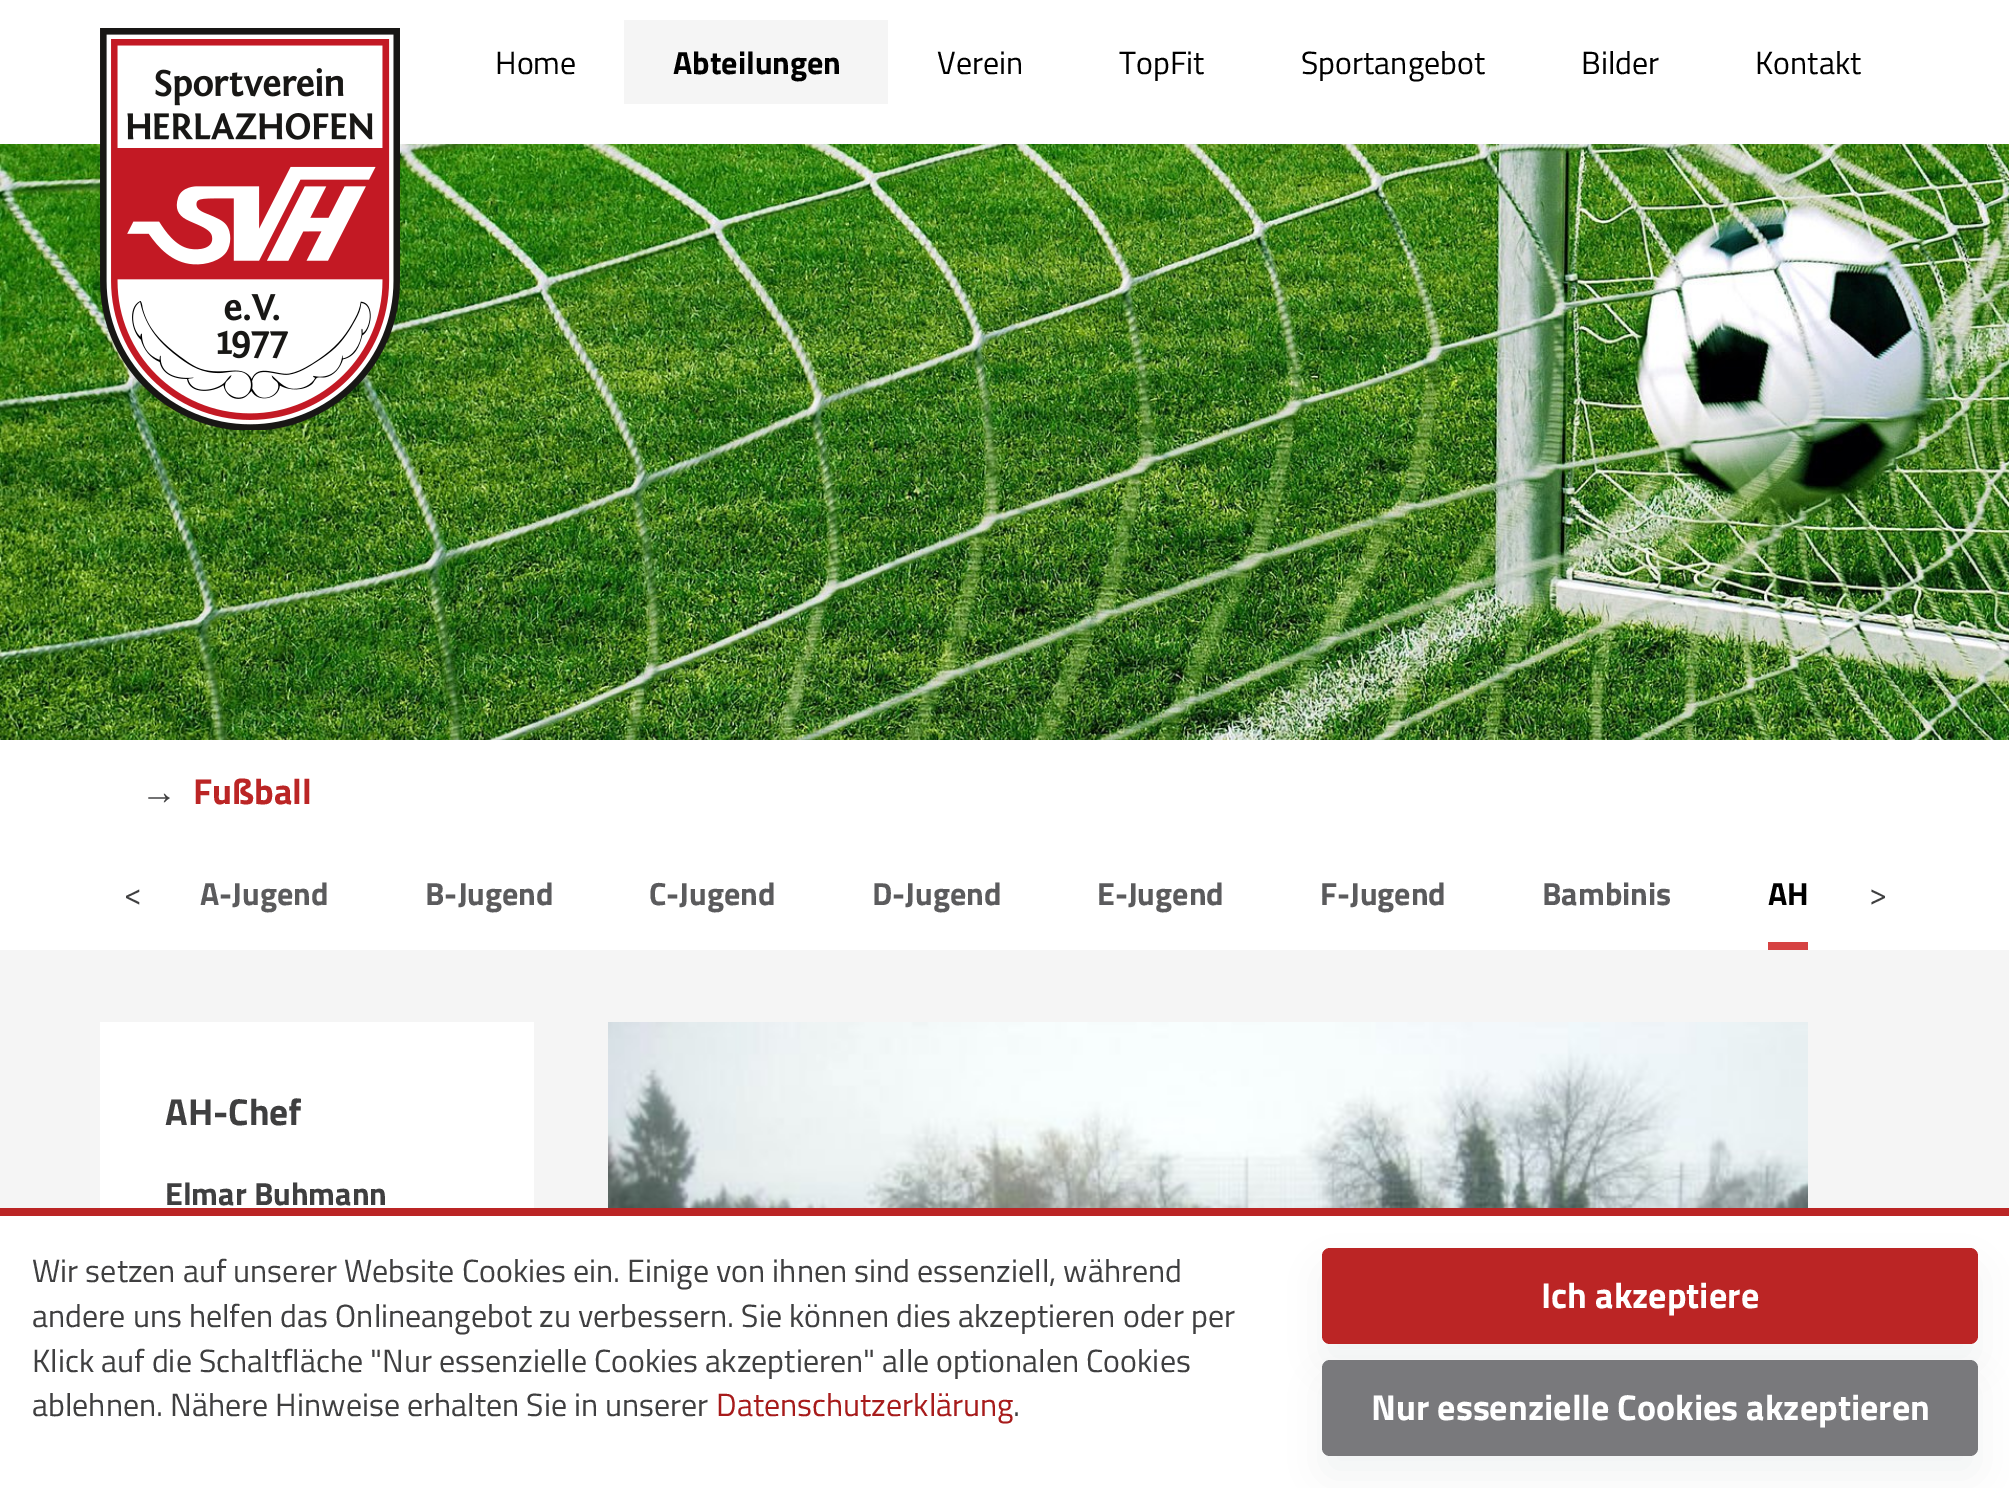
%!PS
<< /PageSize [2009 1488] /PageUsesTransparency true >> setpagedevice
/rgb { 3 { 255 div 3 1 roll } repeat setrgbcolor } def
/font { [ exch dup neg 0 0 3 -1 roll 0 0 ] selectfont } def
/text { moveto show } def
/alpha { dup .setfillconstantalpha .setstrokeconstantalpha } def
/roundrect { 5 dict begin { /r /h /w /y /x } { exch def } forall
  x r add y moveto x w add y 2 copy h add r arct x w add y h add x 1 index r arct
  x y h add x y r arct x y 2 copy exch w add exch r arct closepath end } def
/shadow { 12 dict begin { /a /b /q /h /w /y /x } { exch def } forall gsave /was 0 def
  9 -2 -9 { dup b mul 4 div /e exch def 1 sub .425 mul 2.718 exch exp 1 add a .99 .min exch div /now exch def
    1 1 now sub 1 was sub div sub alpha /was now def
    w h .min e 2 mul add 0 gt { x e sub y e sub w e 2 mul add h e 2 mul add
      q e add b .6 mul add w h .min 2 div e add .min 0 .max roundrect fill } if } for grestore end } def
/picture { 5 dict begin { /h /w /y /x /name } { exch def } forall
  gsave x y translate w h scale
  w h 8 [w 0 0 h 0 0] name (r) file false 3 colorimage grestore end } def
0 .pushpdf14devicefilter
0 1488 translate 1 -1 scale
4 setmiterlimit
255 255 255 rgb
0 0 2009 1488 rectfill
(img_02.rgb) 0 144 2009 596 picture
(img_01.rgb) 100 28 300 402 picture
245 245 245 rgb
624 20 264 84 rectfill
0 950 2009 258 rectfill
214 67 67 rgb
1768 942 40 8 rectfill
255 255 255 rgb
100 1022 434 186 rectfill
(img_03.rgb) 608 1022 1200 186 picture
187 37 37 rgb
0 1208 2009 8 rectfill
24 52 58 rgb
1322 1268 656 96 8 20 0.05 shadow
187 37 37 rgb
1322 1248 656 96 8 roundrect fill
24 52 58 rgb
1322 1380 656 96 8 20 0.05 shadow
121 121 124 rgb
1322 1360 656 96 8 roundrect fill
/TitilliumWeb-Regular 32 font
0 0 0 rgb
(Home) 495 74 text
/TitilliumWeb-Bold 32 font
(Abteilungen) 673 74 text
/TitilliumWeb-Regular 32 font
(Verein) 937 74 text
(TopFit) 1119 74 text
(Sportangebot) 1301 74 text
(Bilder) 1581 74 text
(Kontakt) 1755 74 text
/LiberationSans-Regular 36 font
63 63 64 rgb
(→) 141 804 text
/TitilliumWeb-Bold 36 font
187 37 37 rgb
(Fußball) 193 804 text
/TitilliumWeb-Regular 32 font
63 63 64 rgb
(<) 124 905 text
/TitilliumWeb-Bold 32 font
91 91 93 rgb
(A-Jugend) 200 905 text
(B-Jugend) 425 905 text
(C-Jugend) 649 905 text
(D-Jugend) 872 905 text
(E-Jugend) 1097 905 text
(F-Jugend) 1320 905 text
(Bambinis) 1542 905 text
0 0 0 rgb
(AH) 1768 905 text
/TitilliumWeb-Regular 32 font
63 63 64 rgb
(>) 1869 905 text
/TitilliumWeb-Bold 37.5 font
(AH-Chef) 165 1125 text
/TitilliumWeb-Bold 32 font
(Elmar Buhmann) 165 1205 text
/TitilliumWeb-Regular 32 font
(Wir setzen auf unserer Website Cookies ein. Einige von ihnen sind essenziell, während) 32 1282 text
(andere uns helfen das Onlineangebot zu verbessern. Sie können dies akzeptieren oder per) 32 1327 text
(Klick auf die Schaltfläche "Nur essenzielle Cookies akzeptieren" alle optionalen Cookies) 32 1372 text
(ablehnen. Nähere Hinweise erhalten Sie in unserer) 32 1416 text
167 27 27 rgb
(Datenschutzerklärung) 716 1416 text
63 63 64 rgb
(.) 1013 1416 text
/TitilliumWeb-Bold 36 font
255 255 255 rgb
(Ich akzeptiere) 1541 1308 text
(Nur essenzielle Cookies akzeptieren) 1371 1420 text
.poppdf14devicefilter showpage
